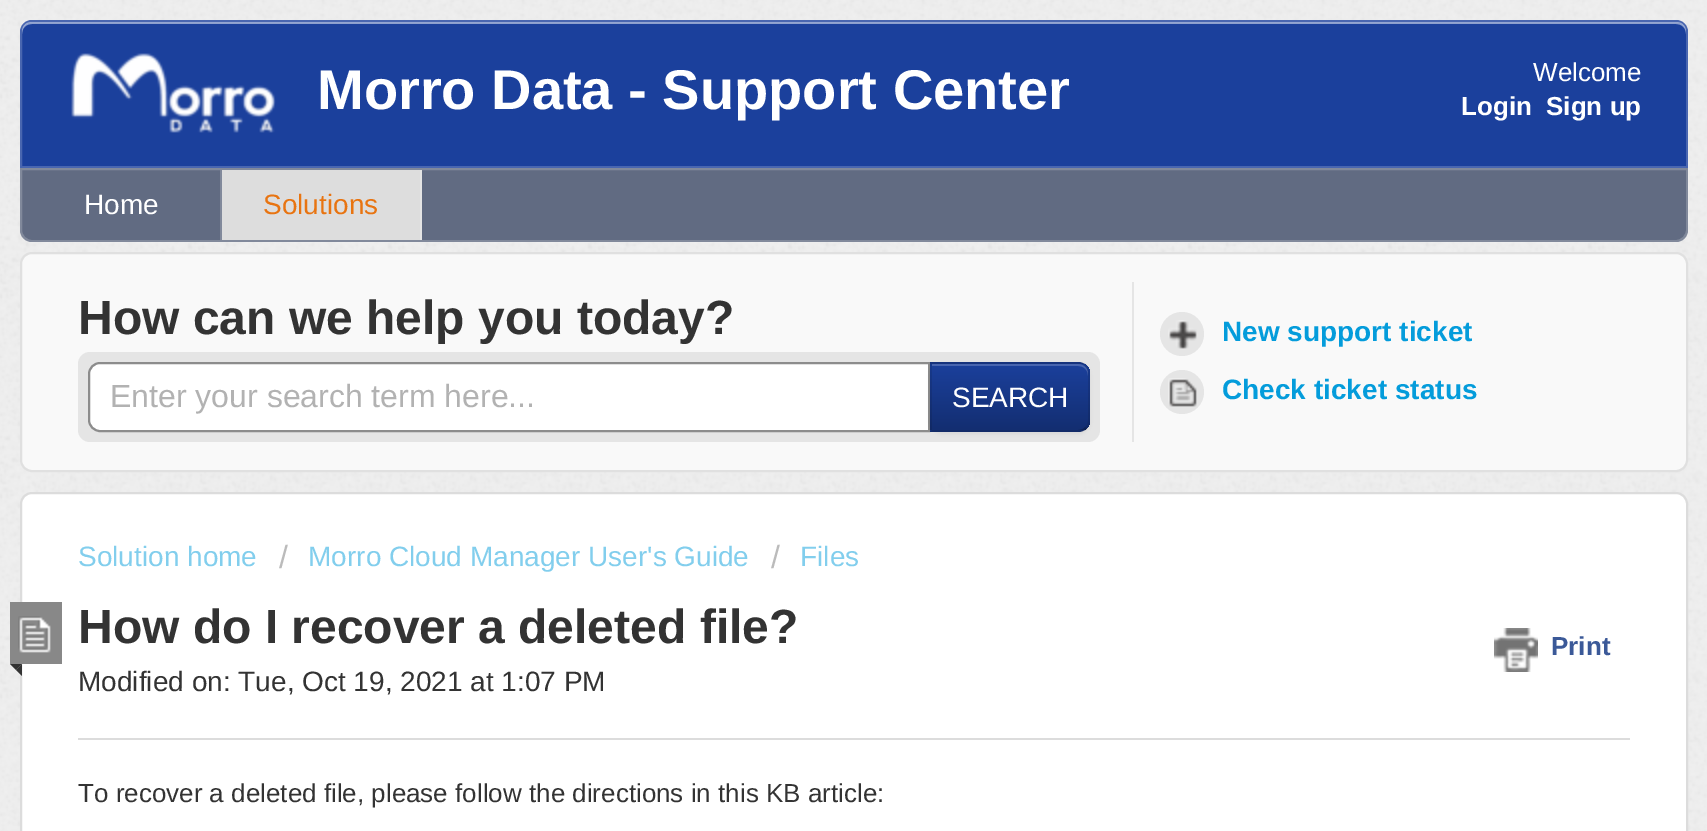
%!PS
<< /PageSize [1707 831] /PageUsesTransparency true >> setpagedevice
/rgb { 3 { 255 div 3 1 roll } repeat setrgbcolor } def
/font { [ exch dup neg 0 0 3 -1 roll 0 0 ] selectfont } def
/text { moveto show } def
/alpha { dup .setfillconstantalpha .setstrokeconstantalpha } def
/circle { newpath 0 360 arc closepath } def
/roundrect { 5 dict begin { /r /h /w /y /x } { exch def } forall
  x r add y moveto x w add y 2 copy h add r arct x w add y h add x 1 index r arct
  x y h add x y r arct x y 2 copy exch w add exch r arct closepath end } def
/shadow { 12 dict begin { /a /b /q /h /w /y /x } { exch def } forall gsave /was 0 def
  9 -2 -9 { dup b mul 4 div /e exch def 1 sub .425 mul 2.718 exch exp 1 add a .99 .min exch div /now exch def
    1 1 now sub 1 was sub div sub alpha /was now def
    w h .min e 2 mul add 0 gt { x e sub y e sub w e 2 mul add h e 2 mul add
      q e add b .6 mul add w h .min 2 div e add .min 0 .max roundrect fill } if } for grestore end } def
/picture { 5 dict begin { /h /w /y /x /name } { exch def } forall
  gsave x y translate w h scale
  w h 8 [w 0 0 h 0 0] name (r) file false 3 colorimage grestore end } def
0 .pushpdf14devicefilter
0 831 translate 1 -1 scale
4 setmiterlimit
239 239 239 rgb
0 0 1707 831 rectfill
(img_01.rgb) 0 0 1707 831 picture
27 64 156 rgb
32 20 moveto 1644 0 rlineto 6.5 0 12 5.5 12 12 rcurveto 0 136 rlineto -1668 0 rlineto 0 -136 rlineto 0 -6.5 5.5 -12 12 -12 rcurveto closepath fill
141 160 206 rgb
32 24 moveto 1644 0 rlineto 6 0 10 4 10 10 rcurveto 0 -2 rlineto 0 -6 -4 -10 -10 -10 rcurveto -1644 0 rlineto -6 0 -10 4 -10 10 rcurveto 0 2 rlineto 0 -6 4 -10 10 -10 rcurveto closepath fill
0.2 alpha
255 255 255 rgb
2 setlinewidth
32 21 moveto 1644 0 rlineto 6 0 11 5 11 11 rcurveto 0 135 rlineto -1666 0 rlineto 0 -135 rlineto 0 -6 5 -11 11 -11 rcurveto closepath stroke
1 alpha
(img_02.rgb) 71 53 205 80 picture
97 107 130 rgb
20 168 moveto 1668 0 rlineto 0 62 rlineto 0 6.5 -5.5 12 -12 12 rcurveto -1644 0 rlineto -6.5 0 -12 -5.5 -12 -12 rcurveto closepath fill
0.2 alpha
255 255 255 rgb
21 169 moveto 1666 0 rlineto 0 61 rlineto 0 6 -5 11 -11 11 rcurveto -1644 0 rlineto -6 0 -11 -5 -11 -11 rcurveto closepath stroke
1 alpha
129 137 155 rgb
220 170 2 70 rectfill
221 221 221 rgb
222 170 198 70 rectfill
228 228 228 rgb
420 170 2 70 rectfill
249 249 249 rgb
21 253 1666 218 11 roundrect gsave fill grestore
224 224 224 rgb
stroke
229 229 229 rgb
1132 282 2 160 rectfill
78 352 1022 90 12 roundrect fill
255 255 255 rgb
100 363 moveto 829 0 rlineto 0 68 rlineto -829 0 rlineto -6 0 -11 -5 -11 -11 rcurveto 0 -46 rlineto 0 -6 5 -11 11 -11 rcurveto closepath gsave fill grestore
140 140 140 rgb
stroke
0 0 0 rgb
930 364 160 70 12 2 0.05 shadow
24 57 139 rgb
930 362 moveto 148 0 rlineto 6.5 0 12 5.5 12 12 rcurveto 0 46 rlineto 0 6.5 -5.5 12 -12 12 rcurveto -148 0 rlineto closepath fill
gsave
930 362 moveto 148 0 rlineto 6.5 0 12 5.5 12 12 rcurveto 0 46 rlineto 0 6.5 -5.5 12 -12 12 rcurveto -148 0 rlineto closepath clip newpath
gsave 930 364 moveto 160 0 rlineto 0 66 rlineto -160 0 rlineto closepath clip newpath
<< /ShadingType 2 /ColorSpace /DeviceRGB /Coords [1010 364 1010 430] /Extend [true true] /Function << /FunctionType 2 /Domain [0 1] /C0 [0.106 0.251 0.612] /C1 [0.075 0.18 0.443] /N 1 >> >> shfill grestore
grestore
0.2 alpha
255 255 255 rgb
932 366 moveto 146 0 rlineto 6 0 10 4 10 10 rcurveto 0 -2 rlineto 0 -6 -4 -10 -10 -10 rcurveto -146 0 rlineto closepath fill
0.1 alpha
0 0 0 rgb
930 362 moveto 2 2 rlineto 146 0 rlineto 3 0 6 1 7 3 rcurveto 2 -2 rlineto -3 -2 -5 -3 -9 -3 rcurveto closepath fill
1090 420 moveto 0 -46 rlineto 0 -4 -1 -6 -3 -9 rcurveto -2 2 rlineto 2 1 3 4 3 7 rcurveto 0 46 rlineto 0 3 -1 6 -3 7 rcurveto 2 2 rlineto 2 -3 3 -5 3 -9 rcurveto closepath fill
0.25 alpha
1078 432 moveto 4 0 6 -1 9 -3 rcurveto -2 -2 rlineto -1 2 -4 3 -7 3 rcurveto -146 0 rlineto -2 2 rlineto closepath fill
0.1 alpha
930 362 moveto 0 70 rlineto 2 -2 rlineto 0 -66 rlineto closepath fill
1 alpha
229 229 229 rgb
1182 334 22 circle fill
(img_03.rgb) 1168 320 29 29 picture
1182 392 22 circle fill
(img_04.rgb) 1168 378 29 29 picture
255 255 255 rgb
21 493 1666 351 11 roundrect gsave fill grestore
220 220 220 rgb
stroke
136 136 136 rgb
10 602 52 62 rectfill
(img_05.rgb) 18 616 33 37 picture
51 51 51 rgb
10 664 moveto 12 0 rlineto -6 6 rlineto closepath fill
22 664 moveto 0 12 rlineto -6 -6 rlineto closepath fill
(img_06.rgb) 1494 628 44 44 picture
220 220 220 rgb
78 738 1552 2 rectfill
/LiberationSans-Bold 56 font
255 255 255 rgb
(Morro Data - Support Center) 317 109 text
/LiberationSans-Regular 26 font
(Welcome) 1533 81 text
/LiberationSans-Bold 26 font
(Login) 1461 115 text
(Sign up) 1546 115 text
/LiberationSans-Regular 28 font
(Home) 84 214 text
232 116 17 rgb
(Solutions) 263 214 text
/LiberationSans-Bold 48 font
51 51 51 rgb
(How can we help you today?) 78 334 text
/LiberationSans-Regular 32 font
178 178 178 rgb
(Enter your search term here...) 110 407 text
/LiberationSans-Regular 28 font
255 255 255 rgb
(SEARCH) 952 407 text
/LiberationSans-Bold 28 font
4 156 219 rgb
(New support ticket) 1222 341 text
(Check ticket status) 1222 399 text
/LiberationSans-Regular 28 font
130 206 237 rgb
(Solution home) 78 566 text
/LiberationSans-Regular 32 font
187 187 187 rgb
(/) 279 568 text
/LiberationSans-Regular 28 font
130 206 237 rgb
(Morro Cloud Manager User's Guide) 308 566 text
/LiberationSans-Regular 32 font
187 187 187 rgb
(/) 771 568 text
/LiberationSans-Regular 28 font
130 206 237 rgb
(Files) 800 566 text
/LiberationSans-Bold 48 font
51 51 51 rgb
(How do I recover a deleted file?) 78 643 text
/LiberationSans-Bold 26 font
59 89 152 rgb
(Print) 1551 655 text
/LiberationSans-Regular 28 font
51 51 51 rgb
(Modified on: Tue, Oct 19, 2021 at 1:07 PM) 78 691 text
/LiberationSans-Regular 26 font
(To recover a deleted file, please follow the directions in this KB article:) 78 802 text
.poppdf14devicefilter showpage
